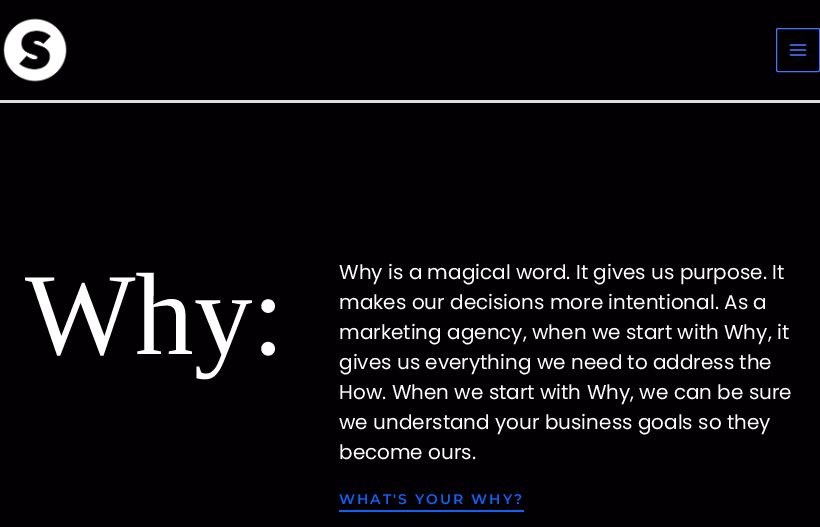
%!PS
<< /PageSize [820 527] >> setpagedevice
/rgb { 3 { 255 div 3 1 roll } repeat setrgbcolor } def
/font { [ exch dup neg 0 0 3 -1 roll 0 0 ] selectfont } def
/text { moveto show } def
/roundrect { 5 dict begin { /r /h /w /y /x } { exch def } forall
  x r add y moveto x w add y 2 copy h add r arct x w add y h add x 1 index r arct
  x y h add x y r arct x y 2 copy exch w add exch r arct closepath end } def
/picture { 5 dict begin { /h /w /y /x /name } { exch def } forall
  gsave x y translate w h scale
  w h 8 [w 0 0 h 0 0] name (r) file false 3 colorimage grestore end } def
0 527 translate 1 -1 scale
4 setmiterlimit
3 0 3 rgb
0 0 820 527 rectfill
221 221 221 rgb
0 100 820 3 rectfill
(img_01.rgb) 3 18 64 64 picture
65 117 252 rgb
776.5 28.5 43 43 1.5 roundrect stroke
(img_02.rgb) 789 44 18 12 picture
15 98 244 rgb
339 510 185 2 rectfill
/LiberationSerif-Regular 117 font
255 255 255 rgb
(Why:) 25 354 text
/Poppins-Regular 20 font
(Why is a magical word. It gives us purpose. It) 339 279 text
(makes our decisions more intentional. As a) 339 309 text
(marketing agency, when we start with Why, it) 339 339 text
(gives us everything we need to address the) 339 369 text
(How. When we start with Why, we can be sure) 339 399 text
(we understand your business goals so they) 339 429 text
(become ours.) 339 459 text
/Montserrat-Thin 14 font
15 98 244 rgb
339 504 moveto 2 0 (WHAT'S YOUR WHY?) ashow
showpage
